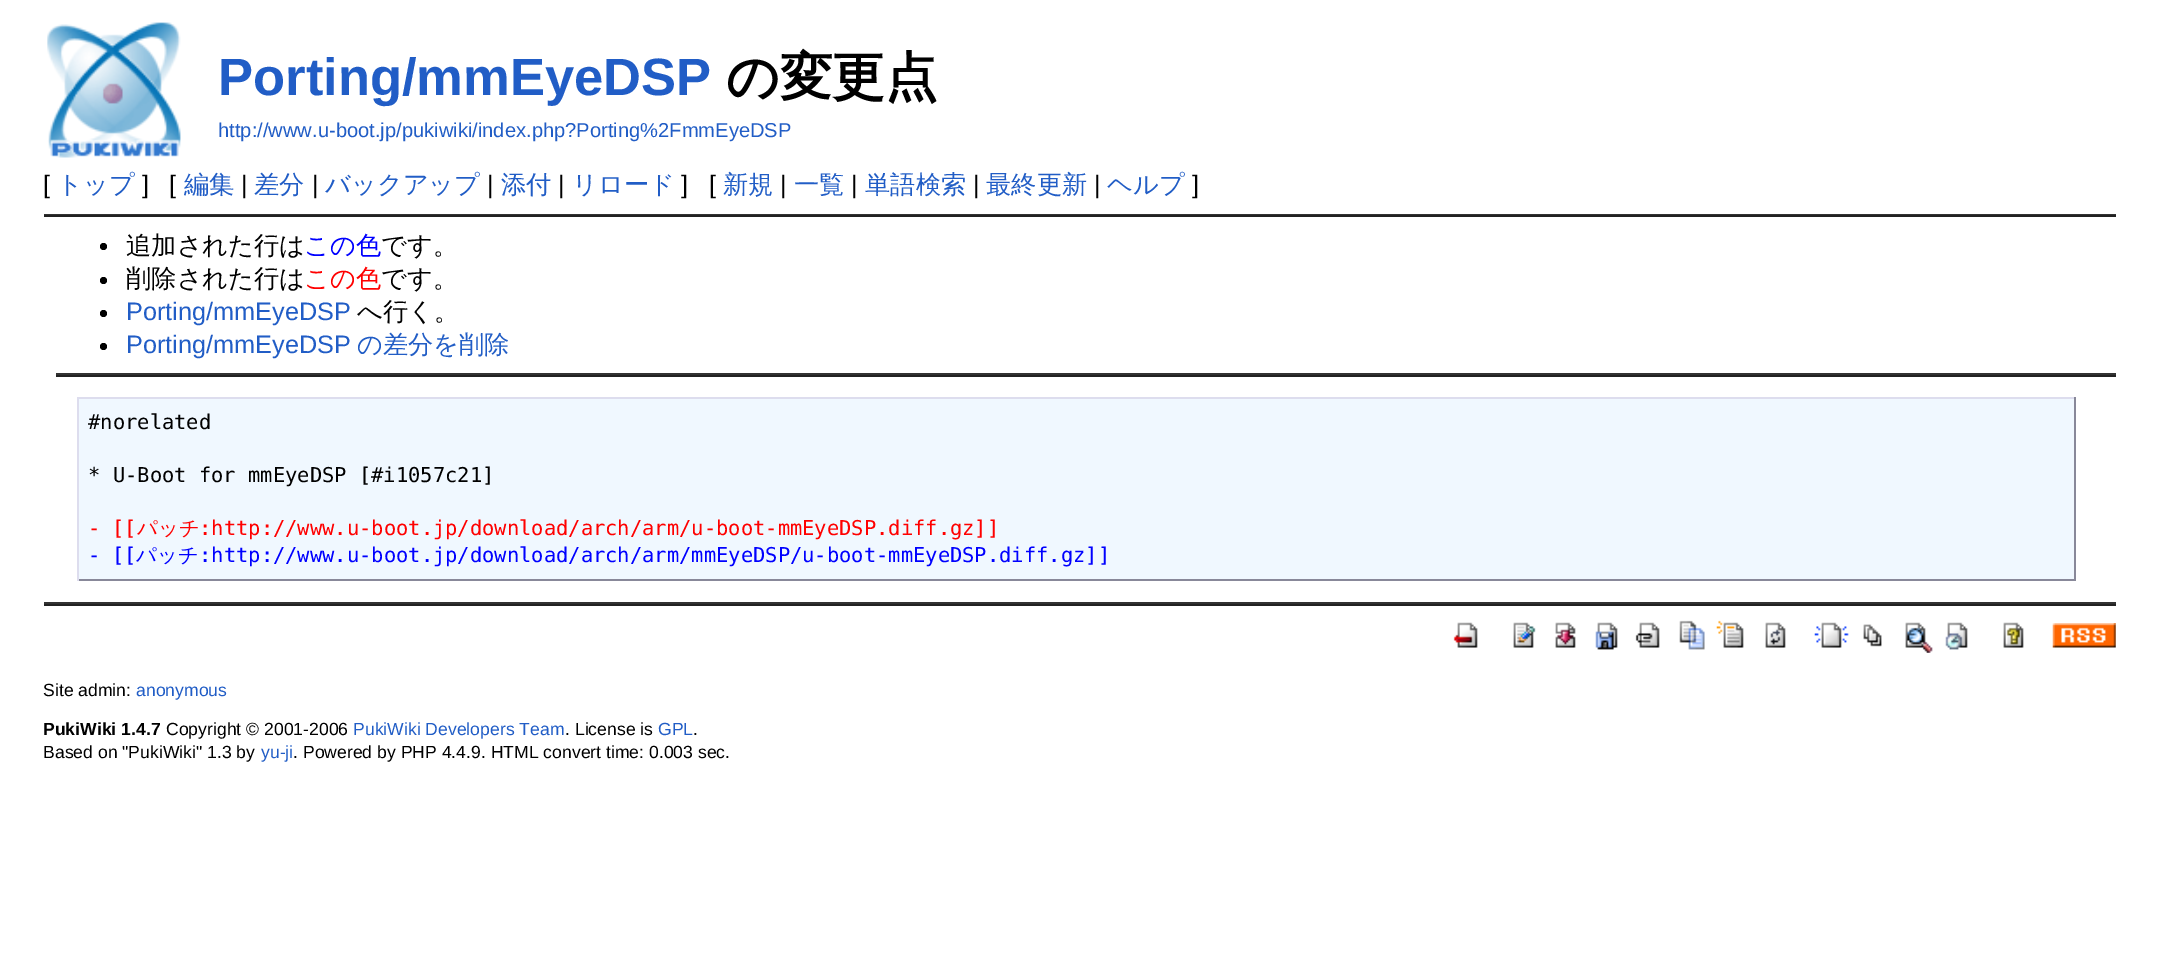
%!PS
<< /PageSize [2158 977] >> setpagedevice
/rgb { 3 { 255 div 3 1 roll } repeat setrgbcolor } def
/font { [ exch dup neg 0 0 3 -1 roll 0 0 ] selectfont } def
/text { moveto show } def
/circle { newpath 0 360 arc closepath } def
/picture { 5 dict begin { /h /w /y /x /name } { exch def } forall
  gsave x y translate w h scale
  w h 8 [w 0 0 h 0 0] name (r) file false 3 colorimage grestore end } def
0 977 translate 1 -1 scale
4 setmiterlimit
255 255 255 rgb
0 0 2158 977 rectfill
(img_01.rgb) 47 22 134 136 picture
51 51 51 rgb
44 214 2072 1 rectfill
34 34 34 rgb
44 215 2072 2 rectfill
0 0 0 rgb
103.5 246.5 3.5 circle fill
103.5 280.5 3.5 circle fill
103.5 313.5 3.5 circle fill
103.5 346.5 3.5 circle fill
51 51 51 rgb
56 373 2060 2 rectfill
34 34 34 rgb
56 375 2060 2 rectfill
240 248 255 rgb
79 399 1995 180 rectfill
221 221 238 rgb
77 397 1999 2 rectfill
136 136 153 rgb
2074 397 2 184 rectfill
77 579 1999 2 rectfill
221 221 238 rgb
77 397 2 184 rectfill
51 51 51 rgb
44 602 2072 2 rectfill
34 34 34 rgb
44 604 2072 2 rectfill
(img_02.rgb) 1453 622 25 26 picture
(img_03.rgb) 1513 622 23 26 picture
(img_04.rgb) 1555 622 21 26 picture
(img_05.rgb) 1595 622 23 28 picture
(img_06.rgb) 1635 622 25 26 picture
(img_07.rgb) 1679 620 26 30 picture
(img_08.rgb) 1716 620 28 28 picture
(img_09.rgb) 1765 622 21 26 picture
(img_10.rgb) 1814 622 35 26 picture
(img_11.rgb) 1863 624 19 23 picture
(img_12.rgb) 1905 622 28 31 picture
(img_13.rgb) 1945 622 23 28 picture
(img_14.rgb) 2003 622 21 26 picture
(img_15.rgb) 2052 623 64 25 picture
/LiberationSans-Bold 52.5 font
33 93 198 rgb
(Porting/mmEyeDSP) 218 95 text
/WenQuanYiZenHei-Bold 52.5 font
0 0 0 rgb
(の変更点) 726 95 text
/LiberationSans-Regular 20.15 font
33 93 198 rgb
(http://www.u-boot.jp/pukiwiki/index.php?Porting%2FmmEyeDSP) 218 137 text
/LiberationSans-Regular 25.25 font
0 0 0 rgb
([) 43 193 text
/WenQuanYiZenHei-Medium 25.25 font
33 93 198 rgb
(トップ) 57 193 text
/LiberationSans-Regular 25.25 font
0 0 0 rgb
(]) 142 193 text
([) 169 193 text
/WenQuanYiZenHei-Medium 25.25 font
33 93 198 rgb
(編集) 184 193 text
/LiberationSans-Regular 25.25 font
0 0 0 rgb
(|) 241 193 text
/WenQuanYiZenHei-Medium 25.25 font
33 93 198 rgb
(差分) 254 193 text
/LiberationSans-Regular 25.25 font
0 0 0 rgb
(|) 312 193 text
/WenQuanYiZenHei-Medium 25.25 font
33 93 198 rgb
(バックアップ) 325 193 text
/LiberationSans-Regular 25.25 font
0 0 0 rgb
(|) 487 193 text
/WenQuanYiZenHei-Medium 25.25 font
33 93 198 rgb
(添付) 501 193 text
/LiberationSans-Regular 25.25 font
0 0 0 rgb
(|) 558 193 text
/WenQuanYiZenHei-Medium 25.25 font
33 93 198 rgb
(リロード) 572 193 text
/LiberationSans-Regular 25.25 font
0 0 0 rgb
(]) 681 193 text
([) 709 193 text
/WenQuanYiZenHei-Medium 25.25 font
33 93 198 rgb
(新規) 723 193 text
/LiberationSans-Regular 25.25 font
0 0 0 rgb
(|) 780 193 text
/WenQuanYiZenHei-Medium 25.25 font
33 93 198 rgb
(一覧) 794 193 text
/LiberationSans-Regular 25.25 font
0 0 0 rgb
(|) 851 193 text
/WenQuanYiZenHei-Medium 25.25 font
33 93 198 rgb
(単語検索) 865 193 text
/LiberationSans-Regular 25.25 font
0 0 0 rgb
(|) 973 193 text
/WenQuanYiZenHei-Medium 25.25 font
33 93 198 rgb
(最終更新) 986 193 text
/LiberationSans-Regular 25.25 font
0 0 0 rgb
(|) 1094 193 text
/WenQuanYiZenHei-Medium 25.25 font
33 93 198 rgb
(ヘルプ) 1107 193 text
/LiberationSans-Regular 25.25 font
0 0 0 rgb
(]) 1192 193 text
/WenQuanYiZenHei-Medium 25.25 font
(追加された行は) 126 254 text
0 0 255 rgb
(この色) 304 254 text
0 0 0 rgb
(です。) 381 254 text
(削除された行は) 126 287 text
255 0 0 rgb
(この色) 304 287 text
0 0 0 rgb
(です。) 381 287 text
/LiberationSans-Regular 25.25 font
33 93 198 rgb
(Porting/mmEyeDSP) 126 320 text
/WenQuanYiZenHei-Medium 25.25 font
0 0 0 rgb
(へ行く。) 357 320 text
/LiberationSans-Regular 25.25 font
33 93 198 rgb
(Porting/mmEyeDSP) 126 353 text
/WenQuanYiZenHei-Medium 25.25 font
(の差分を削除) 357 353 text
/DejaVuSansMono-Regular 20.45 font
0 0 0 rgb
(#norelated) 88 429 text
(* U-Boot for mmEyeDSP [#i1057c21]) 88 482 text
255 0 0 rgb
88 535 moveto -1 0 32 (- [[) widthshow
/WenQuanYiZenHei-Medium 20.45 font
(パッチ) 137 535 text
/DejaVuSansMono-Regular 20.45 font
(:http://www.u-boot.jp/download/arch/arm/u-boot-mmEyeDSP.diff.gz]]) 199 535 text
0 0 255 rgb
88 562 moveto -1 0 32 (- [[) widthshow
/WenQuanYiZenHei-Medium 20.45 font
(パッチ) 136 562 text
/DejaVuSansMono-Regular 20.45 font
(:http://www.u-boot.jp/download/arch/arm/mmEyeDSP/u-boot-mmEyeDSP.diff.gz]]) 199 562 text
/LiberationSans-Regular 17.6 font
0 0 0 rgb
(Site admin:) 43 696 text
33 93 198 rgb
(anonymous) 136 696 text
/LiberationSans-Bold 17.6 font
0 0 0 rgb
(PukiWiki 1.4.7) 43 735 text
/LiberationSans-Regular 17.6 font
(Copyright © 2001-2006) 166 735 text
33 93 198 rgb
(PukiWiki Developers Team) 353 735 text
0 0 0 rgb
(. License is) 565 735 text
33 93 198 rgb
(GPL) 658 735 text
0 0 0 rgb
(.) 693 735 text
(Based on "PukiWiki" 1.3 by) 43 758 text
33 93 198 rgb
(yu-ji) 261 758 text
0 0 0 rgb
(. Powered by PHP 4.4.9. HTML convert time: 0.003 sec.) 293 758 text
showpage
